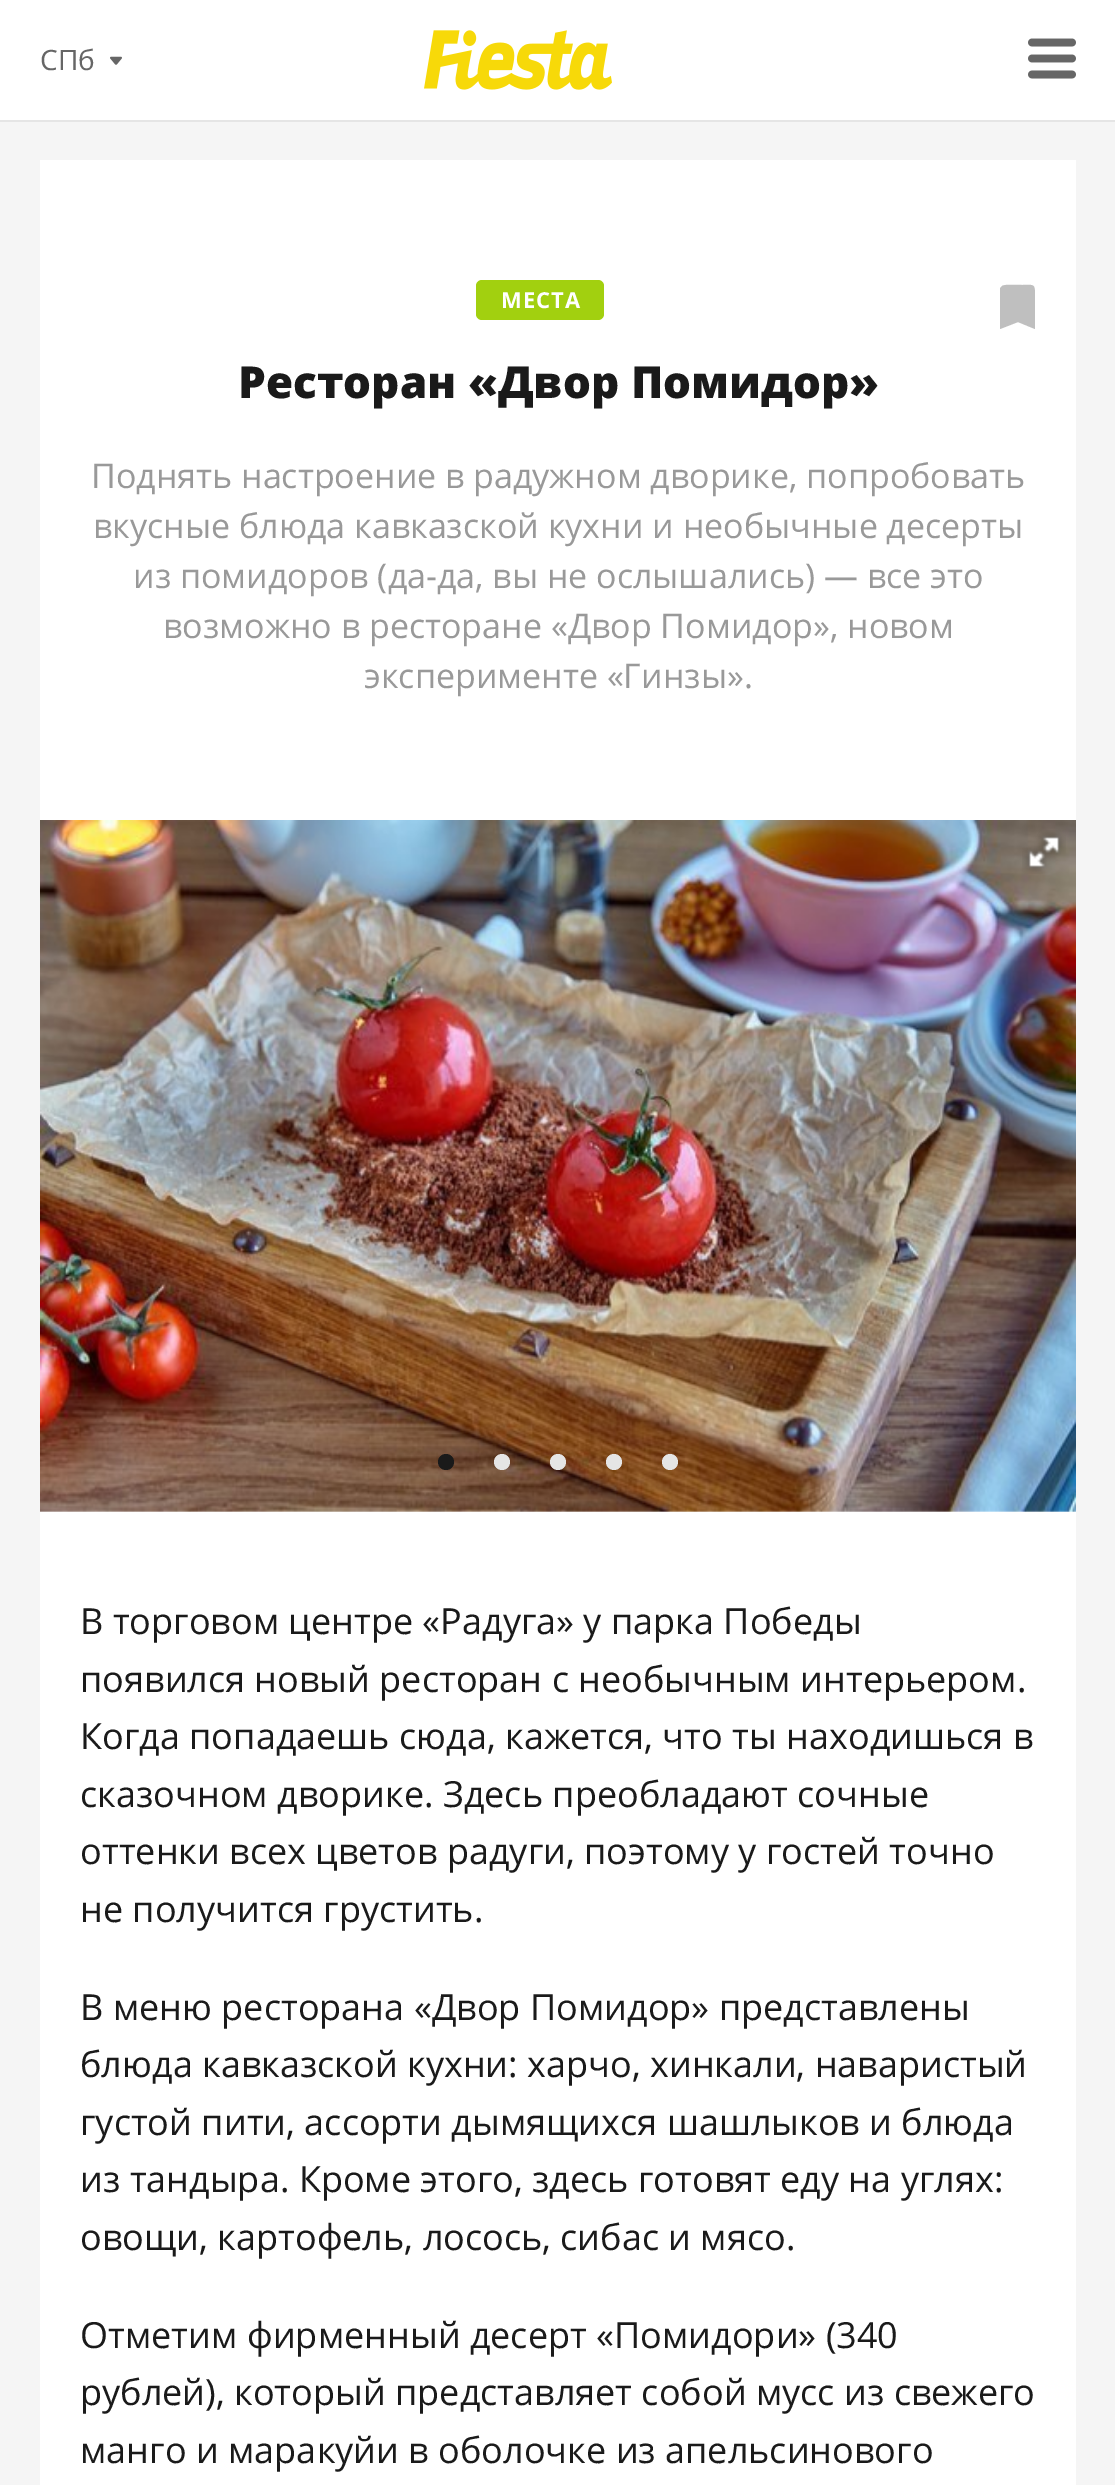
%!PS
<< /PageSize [1115 2485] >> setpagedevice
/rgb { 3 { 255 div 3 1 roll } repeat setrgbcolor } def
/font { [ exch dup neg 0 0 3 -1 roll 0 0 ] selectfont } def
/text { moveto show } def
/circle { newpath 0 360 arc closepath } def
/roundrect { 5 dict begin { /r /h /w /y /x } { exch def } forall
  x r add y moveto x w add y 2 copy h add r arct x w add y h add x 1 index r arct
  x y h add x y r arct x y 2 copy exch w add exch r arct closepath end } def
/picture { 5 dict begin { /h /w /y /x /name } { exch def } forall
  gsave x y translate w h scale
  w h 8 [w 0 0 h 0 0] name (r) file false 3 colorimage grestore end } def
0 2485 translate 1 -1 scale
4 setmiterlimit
245 245 245 rgb
0 0 1115 2485 rectfill
255 255 255 rgb
0 0 1115 120 rectfill
229 229 229 rgb
0 120 1115 2 rectfill
(img_01.rgb) 110 56 12 9 picture
(img_02.rgb) 424 30 188 60 picture
(img_03.rgb) 1028 38 48 41 picture
255 255 255 rgb
40 160 1036 2325 rectfill
162 208 15 rgb
476 280 128 40 6 roundrect fill
191 191 191 rgb
1000 289 moveto 0 40 rlineto 18 -7 rlineto 17 7 rlineto 0 -33 rlineto 0 -13 -1 -11 -13 -11 rcurveto -4 0 -17 -1 -20 1 rcurveto -1 1 -2 2 -2 3 rcurveto closepath fill
(img_04.rgb) 40 820 1036 692 picture
(img_05.rgb) 1022 830 44 44 picture
26 26 26 rgb
446 1462 8 circle fill
229 229 229 rgb
502 1462 8 circle fill
558 1462 8 circle fill
614 1462 8 circle fill
670 1462 8 circle fill
/OpenSans-Regular 28 font
102 102 102 rgb
(СПб) 40 70 text
/OpenSans-Bold 22 font
255 255 255 rgb
501 308 moveto 1 0 (МЕСТА) ashow
/OpenSans-ExtraBold 44 font
26 26 26 rgb
(Ресторан «Двор Помидор») 238 398 text
/OpenSans-Regular 34 font
153 153 153 rgb
(Поднять настроение в радужном дворике, попробовать) 91 488 text
(вкусные блюда кавказской кухни и необычные десерты) 93 538 text
(из помидоров \(да-да, вы не ослышались\) — все это) 133 588 text
(возможно в ресторане «Двор Помидор», новом) 163 638 text
(эксперименте «Гинзы».) 364 688 text
/OpenSans-Regular 36 font
26 26 26 rgb
(В торговом центре «Радуга» у парка Победы) 80 1634 text
(появился новый ресторан с необычным интерьером.) 80 1692 text
(Когда попадаешь сюда, кажется, что ты находишься в) 80 1749 text
(сказочном дворике. Здесь преобладают сочные) 80 1807 text
(оттенки всех цветов радуги, поэтому у гостей точно) 80 1864 text
(не получится грустить.) 80 1922 text
(В меню ресторана «Двор Помидор» представлены) 80 2020 text
(блюда кавказской кухни: харчо, хинкали, наваристый) 80 2077 text
(густой пити, ассорти дымящихся шашлыков и блюда) 80 2135 text
(из тандыра. Кроме этого, здесь готовят еду на углях:) 80 2192 text
(овощи, картофель, лосось, сибас и мясо.) 80 2250 text
(Отметим фирменный десерт «Помидори» \(340) 80 2348 text
(рублей\), который представляет собой мусс из свежего) 80 2405 text
(манго и маракуйи в оболочке из апельсинового) 80 2463 text
showpage
